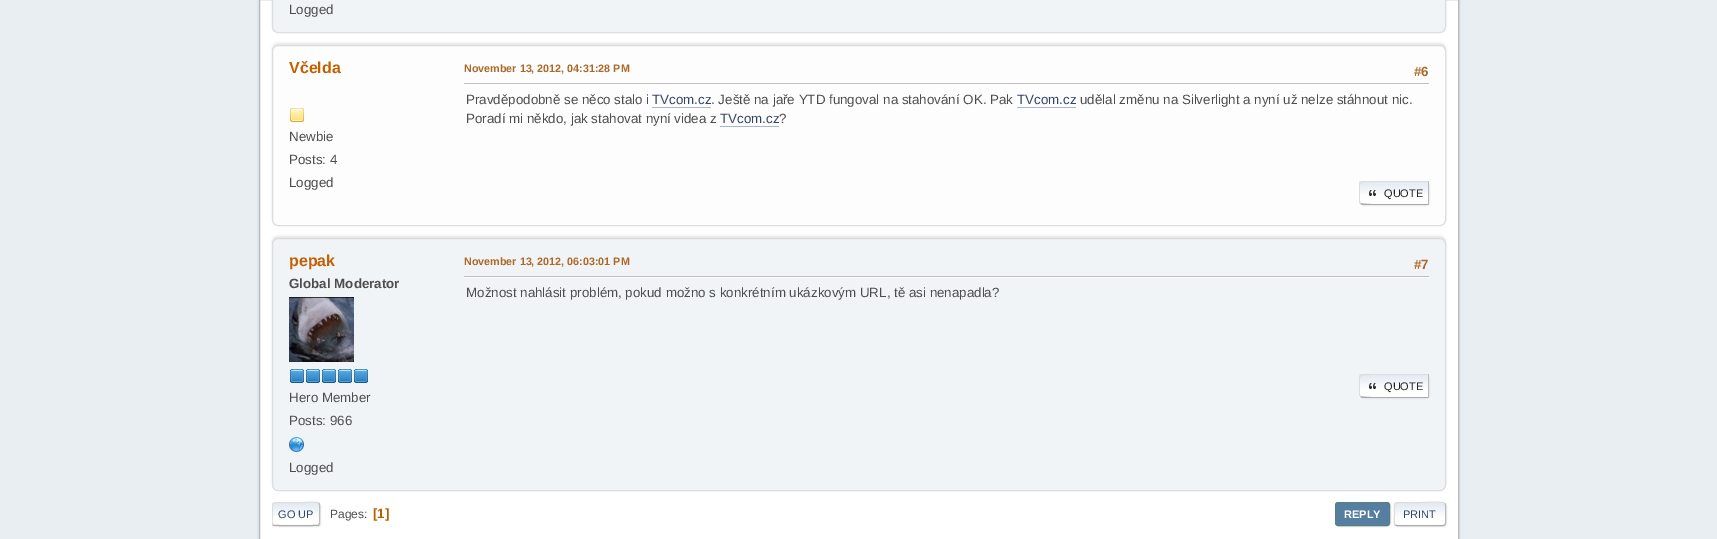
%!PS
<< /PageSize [1717 539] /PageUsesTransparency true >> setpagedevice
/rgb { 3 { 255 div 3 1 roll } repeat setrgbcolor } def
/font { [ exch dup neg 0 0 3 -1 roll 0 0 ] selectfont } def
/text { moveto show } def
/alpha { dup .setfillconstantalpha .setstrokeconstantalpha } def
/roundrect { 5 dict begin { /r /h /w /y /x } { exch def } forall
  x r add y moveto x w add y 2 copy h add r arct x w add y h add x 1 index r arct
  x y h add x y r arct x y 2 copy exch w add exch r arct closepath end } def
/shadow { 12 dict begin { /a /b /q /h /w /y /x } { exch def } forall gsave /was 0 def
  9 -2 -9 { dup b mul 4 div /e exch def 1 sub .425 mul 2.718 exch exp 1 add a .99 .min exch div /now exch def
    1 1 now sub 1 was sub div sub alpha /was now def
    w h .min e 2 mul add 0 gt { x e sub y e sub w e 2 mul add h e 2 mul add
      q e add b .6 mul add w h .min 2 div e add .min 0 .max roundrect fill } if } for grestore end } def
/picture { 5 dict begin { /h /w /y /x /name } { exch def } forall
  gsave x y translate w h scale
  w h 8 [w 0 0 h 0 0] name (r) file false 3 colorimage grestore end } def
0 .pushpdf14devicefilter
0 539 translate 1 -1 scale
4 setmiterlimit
233 238 242 rgb
0 0 1717 539 rectfill
0 0 0 rgb
259 -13 1200 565 8 1.5 0.14 shadow
255 255 255 rgb
259.5 -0.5 moveto 1199 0 rlineto 0 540 rlineto -1199 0 rlineto closepath gsave fill grestore
184 184 184 rgb
stroke
0 0 0 rgb
272 -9 1174 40 6 1 0.1 shadow
240 244 247 rgb
272.5 -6.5 1173 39 5.5 roundrect gsave fill grestore
221 221 221 rgb
stroke
0 0 0 rgb
272 43 1174 181 6 1 0.1 shadow
253 253 253 rgb
272.5 45.5 1173 180 5.5 roundrect gsave fill grestore
221 221 221 rgb
stroke
(img_01.rgb) 290 108 14 14 picture
191 191 191 rgb
464 83 965 1 rectfill
168 182 207 rgb
652 107 59 1 rectfill
1017 107 59 1 rectfill
720 126 59 1 rectfill
gsave 1359 181 moveto 70 0 rlineto 0 14 rlineto -70 0 rlineto closepath clip newpath
<< /ShadingType 2 /ColorSpace /DeviceRGB /Coords [1394 181 1394 205] /Extend [true true] /Function << /FunctionType 3 /Domain [0 1] /Functions [<< /FunctionType 2 /Domain [0 1] /C0 [0.886 0.914 0.953] /C1 [1 1 1] /N 1 >> << /FunctionType 2 /Domain [0 1] /C0 [1 1 1] /C1 [1 1 1] /N 1 >>] /Bounds [0.7] /Encode [0 1 0 1] >> >> shfill grestore
gsave
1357 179 moveto 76 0 rlineto 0 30 rlineto -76 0 rlineto closepath 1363 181 moveto 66 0 rlineto 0 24 rlineto -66 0 rlineto -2 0 -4 -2 -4 -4 rcurveto 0 -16 rlineto 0 -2 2 -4 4 -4 rcurveto closepath eoclip newpath
221 221 221 rgb
1360 182 70 24 4 0.5 0.57 shadow
grestore
221 221 221 rgb
1363 181 moveto -3 1 rlineto 1 1 rlineto 1 -2 60 -1 67 -1 rcurveto 1 -1 rlineto closepath fill
187 187 187 rgb
1429 181 moveto -1 1 rlineto 0 22 rlineto 1 1 rlineto closepath fill
170 170 170 rgb
1429 205 moveto -1 -1 rlineto -7 0 -66 1 -67 -1 rcurveto -1 1 rlineto 3 1 rlineto closepath fill
221 221 221 rgb
1359 185 moveto 0 16 rlineto 0 1 0.5 2 1 3 rcurveto 1 -1 rlineto -2 -1.5 -1 -8 -1 -10 rcurveto 0 -2 -1 -8.5 1 -10 rcurveto -1 -1 rlineto -0.5 1 -1 2 -1 3 rcurveto closepath fill
(img_02.rgb) 1369 190 7 6 picture
0 0 0 rgb
272 236 1174 253 6 1 0.1 shadow
240 244 247 rgb
272.5 238.5 1173 252 5.5 roundrect gsave fill grestore
221 221 221 rgb
stroke
(img_03.rgb) 289 297 65 65 picture
(img_04.rgb) 290 369 14 14 picture
(img_04.rgb) 306 369 14 14 picture
(img_04.rgb) 322 369 14 14 picture
(img_04.rgb) 338 369 14 14 picture
(img_04.rgb) 354 369 14 14 picture
(img_05.rgb) 289 437 15 15 picture
255 255 255 rgb
464 277 965 1 rectfill
191 191 191 rgb
464 276 965 1 rectfill
gsave 1359 374 moveto 70 0 rlineto 0 24 rlineto -70 0 rlineto closepath clip newpath
<< /ShadingType 2 /ColorSpace /DeviceRGB /Coords [1394 374 1394 398] /Extend [true true] /Function << /FunctionType 3 /Domain [0 1] /Functions [<< /FunctionType 2 /Domain [0 1] /C0 [0.886 0.914 0.953] /C1 [1 1 1] /N 1 >> << /FunctionType 2 /Domain [0 1] /C0 [1 1 1] /C1 [1 1 1] /N 1 >>] /Bounds [0.7] /Encode [0 1 0 1] >> >> shfill grestore
gsave
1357 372 moveto 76 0 rlineto 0 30 rlineto -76 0 rlineto closepath 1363 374 moveto 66 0 rlineto 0 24 rlineto -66 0 rlineto -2 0 -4 -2 -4 -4 rcurveto 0 -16 rlineto 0 -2 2 -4 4 -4 rcurveto closepath eoclip newpath
221 221 221 rgb
1360 375 70 24 4 0.5 0.57 shadow
grestore
221 221 221 rgb
1363 374 moveto -3 1 rlineto 1 1 rlineto 1 -2 60 -1 67 -1 rcurveto 1 -1 rlineto closepath fill
187 187 187 rgb
1429 374 moveto -1 1 rlineto 0 22 rlineto 1 1 rlineto closepath fill
170 170 170 rgb
1429 398 moveto -1 -1 rlineto -7 0 -66 1 -67 -1 rcurveto -1 1 rlineto 3 1 rlineto closepath fill
221 221 221 rgb
1359 378 moveto 0 16 rlineto 0 1 0.5 2 1 3 rcurveto 1 -1 rlineto -2 -1.5 -1 -8 -1 -10 rcurveto 0 -2 -1 -8.5 1 -10 rcurveto -1 -1 rlineto -0.5 1 -1 2 -1 3 rcurveto closepath fill
(img_02.rgb) 1369 383 7 6 picture
273 503 48 24 3 0.5 0.57 shadow
255 255 255 rgb
272 502 48 24 3 roundrect fill
gsave
272 502 48 24 3 roundrect clip newpath
gsave 272 503 moveto 48 0 rlineto 0 22 rlineto -48 0 rlineto closepath clip newpath
<< /ShadingType 2 /ColorSpace /DeviceRGB /Coords [296 503 296 525] /Extend [true true] /Function << /FunctionType 3 /Domain [0 1] /Functions [<< /FunctionType 2 /Domain [0 1] /C0 [0.886 0.914 0.953] /C1 [1 1 1] /N 1 >> << /FunctionType 2 /Domain [0 1] /C0 [1 1 1] /C1 [1 1 1] /N 1 >>] /Bounds [0.7] /Encode [0 1 0 1] >> >> shfill grestore
grestore
187 187 187 rgb
319 503 moveto 0 0.5 0.5 1.5 0.5 2 rcurveto 0 18 rlineto 0 0.5 -0.5 1.5 -0.5 2 rcurveto stroke
170 170 170 rgb
319 525 moveto -1.5 1 -44.5 1 -46 0 rcurveto stroke
gsave
272 495 1174 38 rectclip
221 221 221 rgb
273 525 moveto -1.5 -2 -0.5 -9 -0.5 -11 rcurveto 0 -12 -2.5 -11.5 9.5 -11.5 rcurveto 21 0 rlineto 2.5 0 14 -1 16 0.5 rcurveto stroke
grestore
221 221 221 rgb
1336 503 55 24 3 0.5 0.57 shadow
85 126 160 rgb
1335.5 502.5 54 23 2.5 roundrect gsave fill grestore
85 128 128 rgb
stroke
gsave
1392 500 moveto 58 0 rlineto 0 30 rlineto -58 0 rlineto closepath 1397 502 moveto 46 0 rlineto 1.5 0 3 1.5 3 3 rcurveto 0 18 rlineto 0 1.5 -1.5 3 -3 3 rcurveto -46 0 rlineto -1.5 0 -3 -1.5 -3 -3 rcurveto 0 -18 rlineto 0 -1.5 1.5 -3 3 -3 rcurveto closepath eoclip newpath
221 221 221 rgb
1395 503 52 24 3 0.5 0.57 shadow
grestore
255 255 255 rgb
1394 502 52 24 3 roundrect fill
gsave
1394 502 52 24 3 roundrect clip newpath
gsave 1394 503 moveto 52 0 rlineto 0 22 rlineto -52 0 rlineto closepath clip newpath
<< /ShadingType 2 /ColorSpace /DeviceRGB /Coords [1420 503 1420 525] /Extend [true true] /Function << /FunctionType 3 /Domain [0 1] /Functions [<< /FunctionType 2 /Domain [0 1] /C0 [0.886 0.914 0.953] /C1 [1 1 1] /N 1 >> << /FunctionType 2 /Domain [0 1] /C0 [1 1 1] /C1 [1 1 1] /N 1 >>] /Bounds [0.7] /Encode [0 1 0 1] >> >> shfill grestore
grestore
187 187 187 rgb
1445 503 moveto 0 0.5 0.5 1.5 0.5 2 rcurveto 0 18 rlineto 0 0.5 -0.5 1.5 -0.5 2 rcurveto stroke
170 170 170 rgb
1445 525 moveto -2 0.5 rlineto -46 0 rlineto -2 -0.5 rlineto stroke
221 221 221 rgb
1395 525 moveto -1.5 -2 -0.5 -9 -0.5 -11 rcurveto 0 -12.5 -2 -11.5 10 -11.5 rcurveto 15.5 0 rlineto 3.5 0 22.5 -1 24.5 0.5 rcurveto 0.5 0 rlineto stroke
/LiberationSans-Regular 13.35 font
77 77 77 rgb
(Logged) 289 14 text
/LiberationSans-Bold 16 font
192 96 2 rgb
(Včelda) 289 73 text
/LiberationSans-Regular 13.35 font
77 77 77 rgb
(Newbie) 289 141 text
(Posts: 4) 289 164 text
(Logged) 289 187 text
/LiberationSans-Bold 10.75 font
173 104 37 rgb
(November 13, 2012, 04:31:28 PM) 464 72 text
/LiberationSans-Bold 13.35 font
(#6) 1414 76 text
/LiberationSans-Regular 13.35 font
77 77 77 rgb
(Pravděpodobně se něco stalo i) 466 104 text
51 68 102 rgb
(TVcom.cz) 652 104 text
77 77 77 rgb
(. Ještě na jaře YTD fungoval na stahování OK. Pak) 711 104 text
51 68 102 rgb
(TVcom.cz) 1017 104 text
77 77 77 rgb
(udělal změnu na Silverlight a nyní už nelze stáhnout nic.) 1080 104 text
(Poradí mi někdo, jak stahovat nyní videa z) 466 123 text
51 68 102 rgb
(TVcom.cz) 720 123 text
77 77 77 rgb
(?) 779 123 text
/LiberationSans-Regular 11 font
34 34 34 rgb
(QUOTE) 1384 197 text
/LiberationSans-Bold 16 font
192 96 2 rgb
(pepak) 289 266 text
/LiberationSans-Bold 13.35 font
77 77 77 rgb
(Global Moderator) 289 288 text
/LiberationSans-Regular 13.35 font
(Hero Member) 289 402 text
(Posts: 966) 289 425 text
(Logged) 289 472 text
/LiberationSans-Bold 10.75 font
173 104 37 rgb
(November 13, 2012, 06:03:01 PM) 464 265 text
/LiberationSans-Bold 13.35 font
(#7) 1414 269 text
/LiberationSans-Regular 13.35 font
77 77 77 rgb
(Možnost nahlásit problém, pokud možno s konkrétním ukázkovým URL, tě asi nenapadla?) 466 297 text
/LiberationSans-Regular 11 font
34 34 34 rgb
(QUOTE) 1384 390 text
51 68 102 rgb
(GO UP) 278 518 text
/LiberationSans-Regular 12 font
77 77 77 rgb
(Pages:) 330 518 text
/LiberationSans-Bold 13.35 font
180 97 0 rgb
([1]) 373 518 text
/LiberationSans-Bold 11 font
255 255 255 rgb
(REPLY) 1344 518 text
/LiberationSans-Regular 11 font
51 68 102 rgb
(PRINT) 1403 518 text
.poppdf14devicefilter showpage
